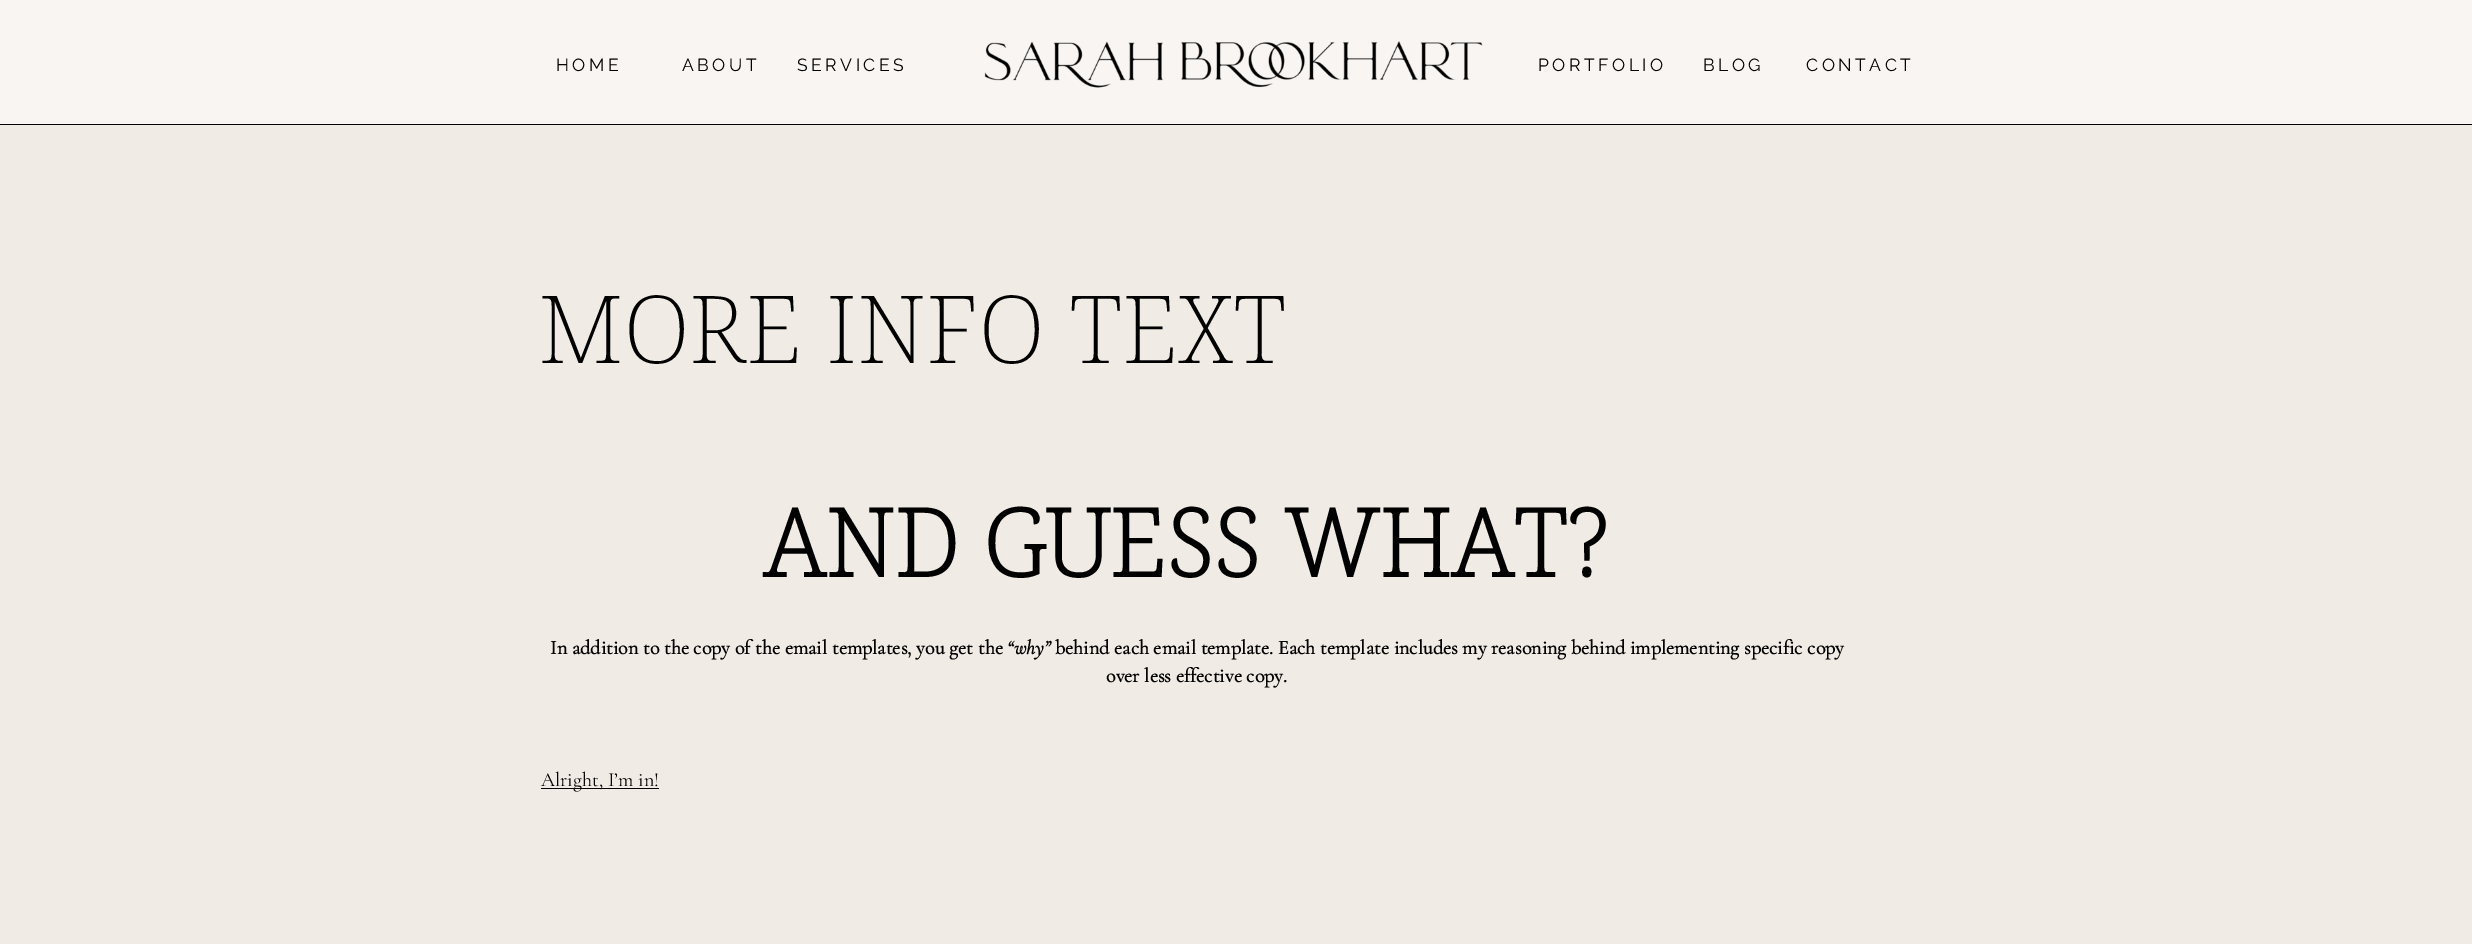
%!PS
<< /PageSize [2472 944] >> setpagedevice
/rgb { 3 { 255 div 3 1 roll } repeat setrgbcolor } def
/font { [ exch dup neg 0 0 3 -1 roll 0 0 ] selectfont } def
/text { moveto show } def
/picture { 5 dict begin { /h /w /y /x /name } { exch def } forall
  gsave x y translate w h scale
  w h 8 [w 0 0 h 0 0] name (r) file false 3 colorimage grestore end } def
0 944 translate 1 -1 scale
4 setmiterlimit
240 235 229 rgb
0 0 2472 944 rectfill
248 245 242 rgb
0 0 2472 124 rectfill
(img_01.rgb) 984 41 499 47 picture
0 0 0 rgb
0 124 2472 1 rectfill
541 788 118 1 rectfill
/Raleway-Thin 17.5 font
556 71 moveto 3.5 0 (HOME) ashow
682 71 moveto 3.5 0 (ABOUT) ashow
797 71 moveto 3.5 0 (SERVICES) ashow
1538 71 moveto 3.5 0 (PORTFOLIO) ashow
1703 71 moveto 3.5 0 (BLOG) ashow
1806 71 moveto 3.5 0 (CONTACT) ashow
/NotoSerif-ExtraLight 93.75 font
(MORE INFO TEXT) 538 363 text
/NotoSerif-Bold 93.75 font
(AND GUESS WHAT?) 763 577 text
/CormorantGaramond-Bold 20 font
(In addition to the copy of the email templates, you get the) 550 654 text
/CormorantGaramond-BoldItalic 20 font
(“why”) 1007 654 text
/CormorantGaramond-Bold 20 font
(behind each email template. Each template includes my reasoning behind implementing specific copy) 1055 654 text
(over less effective copy.) 1106 682 text
/CormorantGaramond-Light 20 font
(Alright, I’m in!) 541 786 text
showpage
